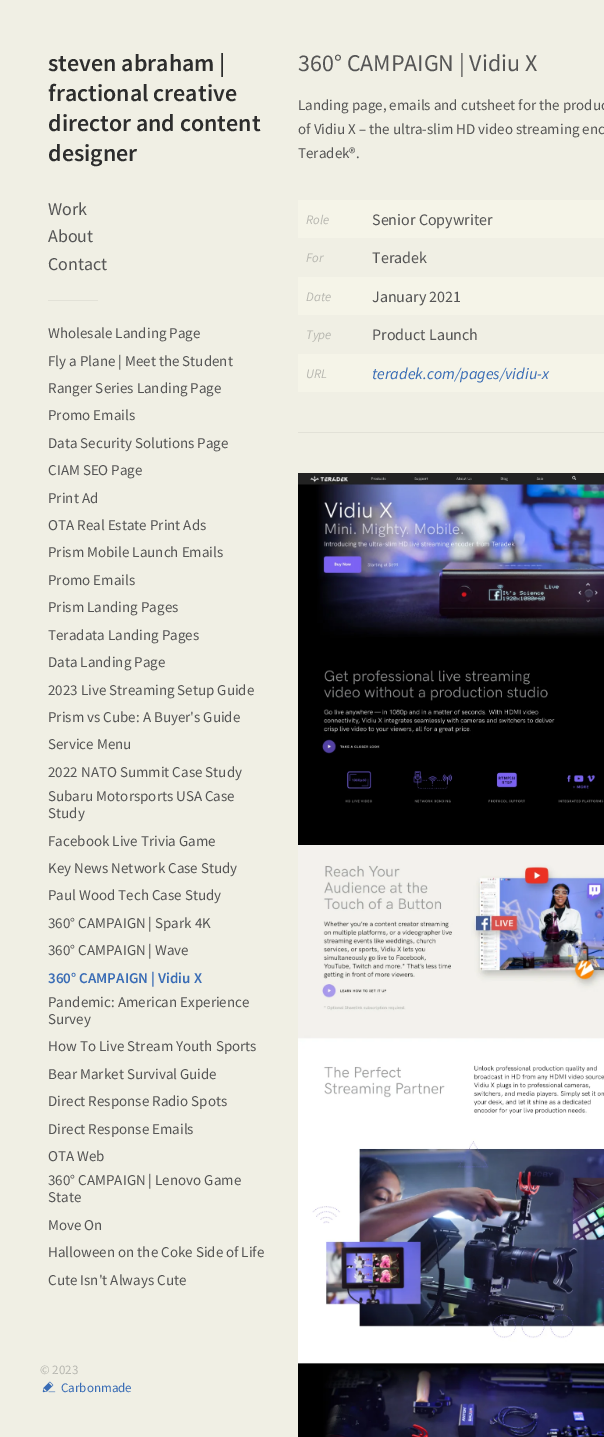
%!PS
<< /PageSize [604 1437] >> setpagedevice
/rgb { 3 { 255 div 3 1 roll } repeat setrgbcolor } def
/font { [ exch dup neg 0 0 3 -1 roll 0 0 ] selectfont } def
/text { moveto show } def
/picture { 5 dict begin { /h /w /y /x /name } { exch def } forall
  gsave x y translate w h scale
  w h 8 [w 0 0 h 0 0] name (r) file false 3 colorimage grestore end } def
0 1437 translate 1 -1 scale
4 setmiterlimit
240 239 228 rgb
0 0 604 1437 rectfill
226 225 215 rgb
48 300 50 1 rectfill
(img_01.rgb) 42 1381 14 12 picture
298 432 306 1 rectfill
245 244 232 rgb
298 200 306 38 rectfill
298 277 306 38 rectfill
298 354 306 38 rectfill
(img_02.rgb) 298 473 306 964 picture
/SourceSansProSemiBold-SemiBold 24 font
45 45 45 rgb
(steven abraham |) 48 71 text
(fractional creative) 48 101 text
(director and content) 48 131 text
(designer) 48 161 text
/SourceSansPro-Regular 18 font
85 85 85 rgb
(Work) 48 215 text
(About) 48 242 text
(Contact) 48 270 text
/SourceSansPro-Regular 15 font
(Wholesale Landing Page) 48 338 text
(Fly a Plane | Meet the Student) 48 366 text
(Ranger Series Landing Page) 48 393 text
(Promo Emails) 48 420 text
(Data Security Solutions Page) 48 448 text
(CIAM SEO Page) 48 475 text
(Print Ad) 48 503 text
(OTA Real Estate Print Ads) 48 530 text
(Prism Mobile Launch Emails) 48 557 text
(Promo Emails) 48 585 text
(Prism Landing Pages) 48 612 text
(Teradata Landing Pages) 48 640 text
(Data Landing Page) 48 667 text
(2023 Live Streaming Setup Guide) 48 695 text
(Prism vs Cube: A Buyer's Guide) 48 722 text
(Service Menu) 48 749 text
(2022 NATO Summit Case Study) 48 777 text
(Subaru Motorsports USA Case) 48 801 text
(Study) 48 818 text
(Facebook Live Trivia Game) 48 846 text
(Key News Network Case Study) 48 873 text
(Paul Wood Tech Case Study) 48 900 text
(360° CAMPAIGN | Spark 4K) 48 928 text
(360° CAMPAIGN | Wave) 48 955 text
/SourceSansProSemiBold-SemiBold 15 font
57 108 181 rgb
(360° CAMPAIGN | Vidiu X) 48 983 text
/SourceSansPro-Regular 15 font
85 85 85 rgb
(Pandemic: American Experience) 48 1007 text
(Survey) 48 1024 text
(How To Live Stream Youth Sports) 48 1051 text
(Bear Market Survival Guide) 48 1079 text
(Direct Response Radio Spots) 48 1106 text
(Direct Response Emails) 48 1134 text
(OTA Web) 48 1161 text
(360° CAMPAIGN | Lenovo Game) 48 1185 text
(State) 48 1202 text
(Move On) 48 1230 text
(Halloween on the Coke Side of Life) 48 1257 text
(Cute Isn't Always Cute) 48 1285 text
/SourceSansPro-Regular 13 font
184 184 177 rgb
(© 2023) 40 1374 text
57 108 181 rgb
(Carbonmade) 61 1392 text
/SourceSansPro-Regular 24 font
85 85 85 rgb
(360° CAMPAIGN | Vidiu X) 298 71 text
/SourceSansPro-Regular 15 font
(Landing page, emails and cutsheet for the produc) 298 110 text
(of Vidiu X – the ultra-slim HD video streaming enc) 298 134 text
(Teradek®.) 298 158 text
/SourceSansPro-Italic 13 font
184 184 177 rgb
(Role) 306 224 text
/SourceSansPro-Regular 16 font
85 85 85 rgb
(Senior Copywriter) 372 225 text
/SourceSansPro-Italic 13 font
184 184 177 rgb
(For) 306 262 text
/SourceSansPro-Regular 16 font
85 85 85 rgb
(Teradek) 372 263 text
/SourceSansPro-Italic 13 font
184 184 177 rgb
(Date) 306 301 text
/SourceSansPro-Regular 16 font
85 85 85 rgb
(January 2021) 372 302 text
/SourceSansPro-Italic 13 font
184 184 177 rgb
(Type) 306 339 text
/SourceSansPro-Regular 16 font
85 85 85 rgb
(Product Launch) 372 340 text
/SourceSansPro-Italic 13 font
184 184 177 rgb
(URL) 306 378 text
/SourceSansPro-Italic 16 font
57 108 181 rgb
(teradek.com/pages/vidiu-x) 372 379 text
showpage
